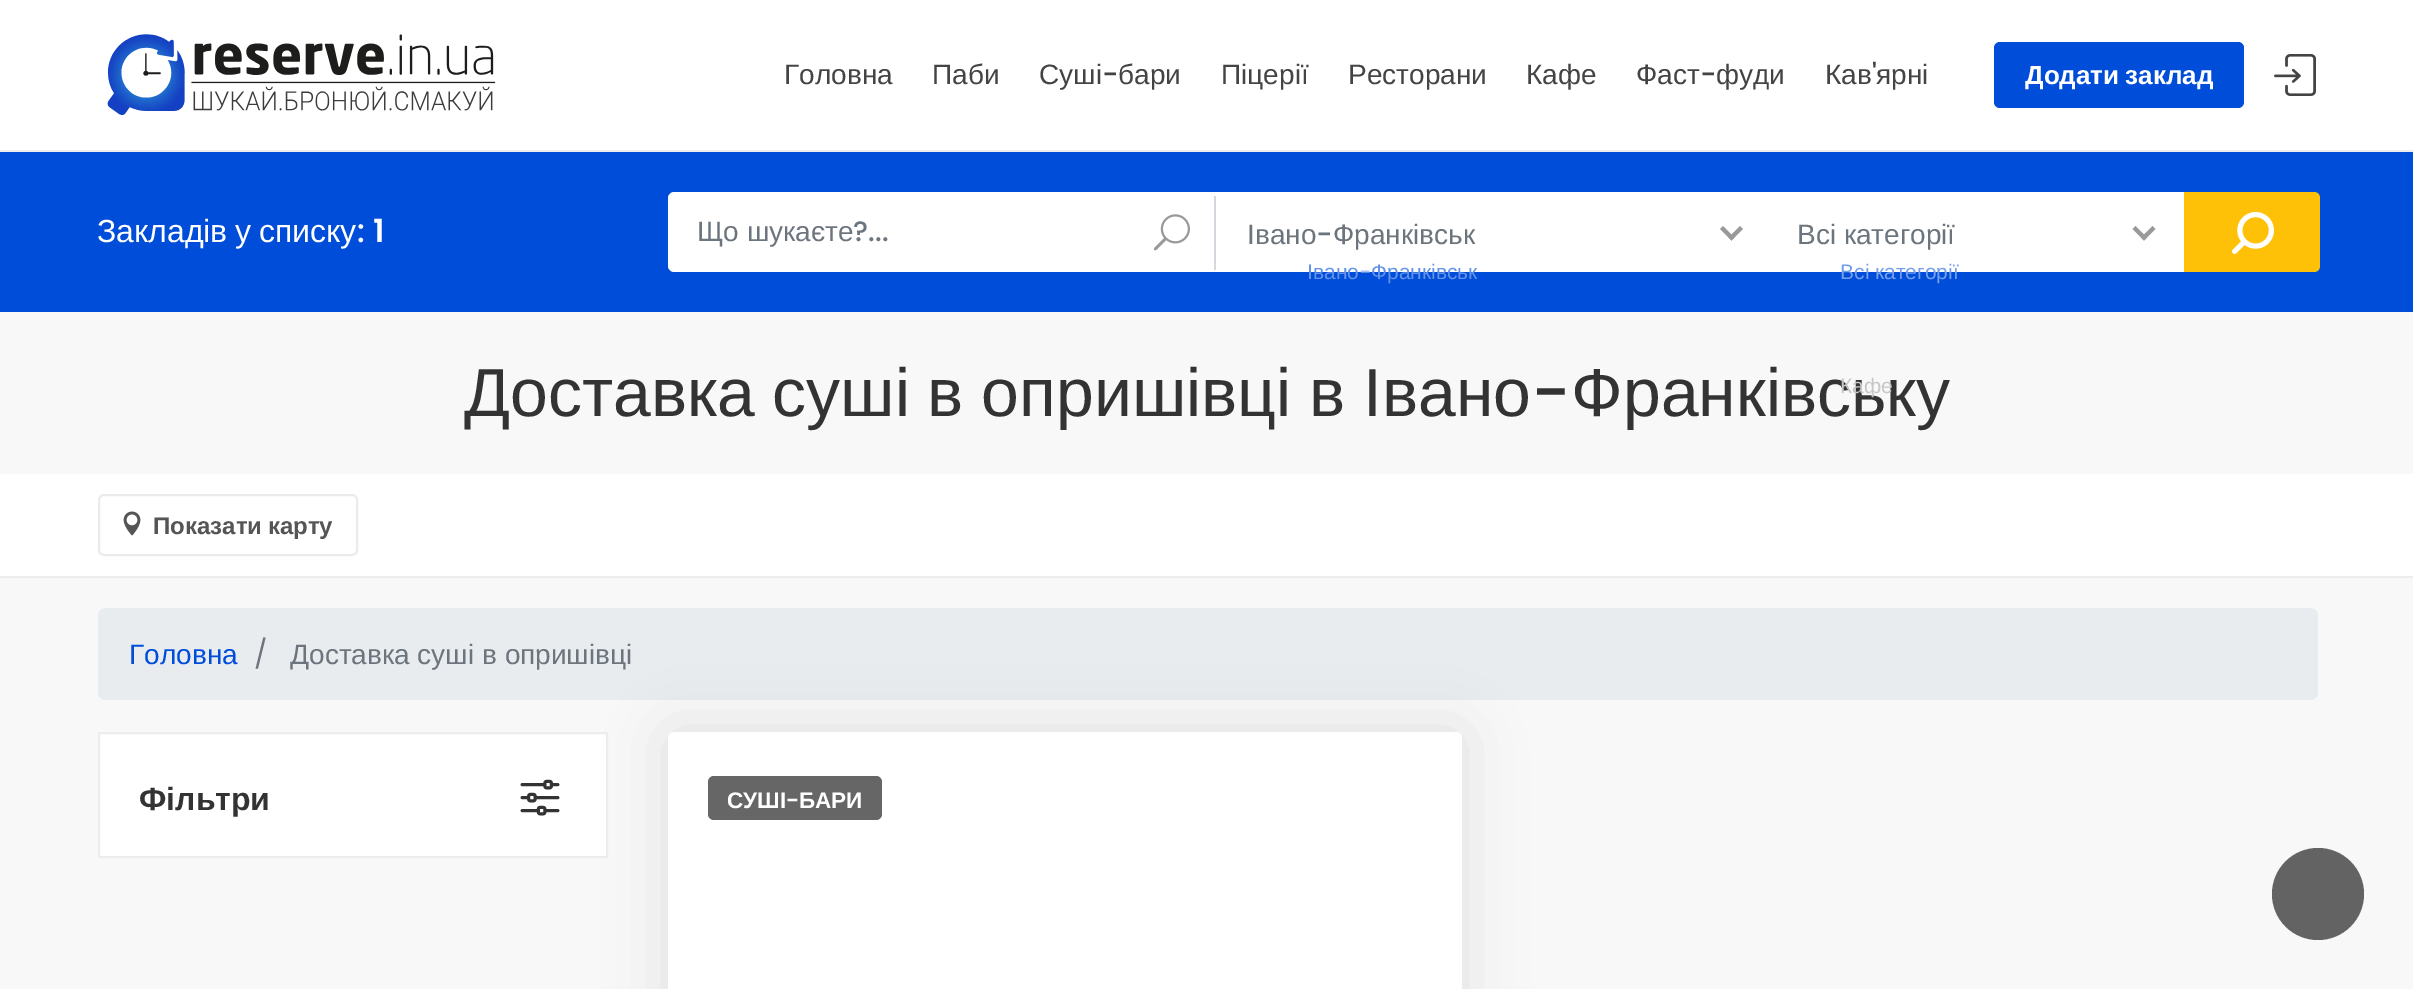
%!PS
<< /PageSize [2413 989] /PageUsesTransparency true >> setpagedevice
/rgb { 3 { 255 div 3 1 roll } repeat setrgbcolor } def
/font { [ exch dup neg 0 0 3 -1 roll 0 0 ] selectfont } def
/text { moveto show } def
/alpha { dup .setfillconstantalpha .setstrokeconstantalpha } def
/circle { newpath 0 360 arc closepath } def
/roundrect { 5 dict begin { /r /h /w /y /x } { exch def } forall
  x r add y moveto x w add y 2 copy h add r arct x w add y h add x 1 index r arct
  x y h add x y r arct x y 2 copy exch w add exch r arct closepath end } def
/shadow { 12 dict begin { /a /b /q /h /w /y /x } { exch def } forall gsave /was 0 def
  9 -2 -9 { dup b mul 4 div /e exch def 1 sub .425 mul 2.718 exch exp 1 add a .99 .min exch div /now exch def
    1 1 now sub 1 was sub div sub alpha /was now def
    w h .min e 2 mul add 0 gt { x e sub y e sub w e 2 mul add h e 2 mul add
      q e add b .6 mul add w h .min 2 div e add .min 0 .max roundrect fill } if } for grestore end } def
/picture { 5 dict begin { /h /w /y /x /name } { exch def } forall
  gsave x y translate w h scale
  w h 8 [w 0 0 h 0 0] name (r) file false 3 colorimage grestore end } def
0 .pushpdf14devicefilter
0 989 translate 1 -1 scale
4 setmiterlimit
248 248 248 rgb
0 0 2413 989 rectfill
255 255 255 rgb
0 0 2413 150 rectfill
237 237 237 rgb
0 150 2413 2 rectfill
(img_01.rgb) 107 34 389 81 picture
0 77 218 rgb
1994 42 250 66 6 roundrect fill
(img_02.rgb) 2274 54 42 42 picture
0 152 2413 160 rectfill
255 255 255 rgb
668 192 1650 80 10 roundrect fill
674 192 moveto 536 0 rlineto 2 0 4 3 4 6 rcurveto 0 68 rlineto 0 3 -2 6 -4 6 rcurveto -536 0 rlineto -3 0 -6 -3 -6 -6 rcurveto 0 -68 rlineto 0 -3 3 -6 6 -6 rcurveto closepath fill
210 216 221 rgb
1214 196 2 74 rectfill
(img_03.rgb) 1153 214 37 37 picture
153 153 153 rgb
1740 226 moveto 3 3 rlineto -11.5 11.5 rlineto -3 -3 rlineto closepath fill
1723 226 moveto 11.5 11.5 rlineto -3 3 rlineto -11.5 -11.5 rlineto closepath fill
2152.5 226 moveto 3 3 rlineto -11.5 11.5 rlineto -3 -3 rlineto closepath fill
2135.5 226 moveto 11.5 11.5 rlineto -3 3 rlineto -11.5 -11.5 rlineto closepath fill
255 193 7 rgb
2184 192 moveto 130 0 rlineto 3.5 0 6 2.5 6 6 rcurveto 0 68 rlineto 0 3.5 -2.5 6 -6 6 rcurveto -130 0 rlineto closepath fill
(img_04.rgb) 2232 212 42 42 picture
255 255 255 rgb
0 474 2413 102 rectfill
237 237 237 rgb
0 576 2413 2 rectfill
235 235 235 rgb
2 setlinewidth
99 495 258 60 5 roundrect stroke
(img_05.rgb) 123 511 18 25 picture
233 236 239 rgb
98 608 2220 92 8 roundrect fill
255 255 255 rgb
99 733 moveto 508 0 rlineto 0 124 rlineto -508 0 rlineto closepath gsave fill grestore
237 237 237 rgb
stroke
(img_06.rgb) 520 779 40 37 picture
0 0 0 rgb
668 732 794 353 6 30 0.1 shadow
255 255 255 rgb
668 732 794 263 6 roundrect fill
102 102 102 rgb
708 776 174 44 6 roundrect fill
99 99 99 rgb
2318 894 46 circle fill
/LiberationSans-Regular 28 font
68 68 68 rgb
(Головна) 784 84 text
(Паби) 932 84 text
(Суші) 1039 84 text
/Poppins-Medium 28 font
(-) 1102 84 text
/LiberationSans-Regular 28 font
(бари) 1118 84 text
(Піцерії) 1221 84 text
(Ресторани) 1348 84 text
(Кафе) 1526 84 text
(Фаст) 1636 84 text
/Poppins-Medium 28 font
(-) 1700 84 text
/LiberationSans-Regular 28 font
(фуди) 1716 84 text
(Кав) 1825 84 text
/Poppins-Medium 28 font
(') 1872 84 text
/LiberationSans-Regular 28 font
(ярні) 1876 84 text
/LiberationSans-Bold 26 font
255 255 255 rgb
2025 84 moveto -1 0 32 (Додати заклад) widthshow
/LiberationSans-Regular 32 font
97 242 moveto -1 0 32 (Закладів у списку) widthshow
/Poppins-Medium 32 font
(:) 357 242 text
/Poppins-SemiBold 32 font
(1) 373 242 text
/LiberationSans-Regular 28 font
108 117 125 rgb
(Що шукаєте) 697 241 text
/Poppins-Medium 28 font
(?...) 853 241 text
/LiberationSans-Regular 28 font
(Івано) 1247 244 text
/Poppins-Medium 28 font
(-) 1316 244 text
/LiberationSans-Regular 28 font
(Франківськ) 1333 244 text
/LiberationSans-Regular 21 font
99 146 232 rgb
(Івано) 1307 279 text
/Poppins-Medium 21 font
170 196 243 rgb
(-) 1359 279 text
/LiberationSans-Regular 21 font
99 146 232 rgb
(Франківськ) 1371 279 text
/LiberationSans-Regular 28 font
108 117 125 rgb
(Всі категорії) 1797 244 text
/LiberationSans-Regular 21 font
118 159 235 rgb
(Всі категорії) 1840 279 text
/LiberationSans-Regular 68 font
51 51 51 rgb
464 416 moveto -1.25 0 32 (Доставка суші в опришівці в Івано) widthshow
/Poppins-Medium 68 font
(-) 1531 416 text
/LiberationSans-Regular 68 font
(Франківську) 1571 416 text
/LiberationSans-Regular 21 font
199 199 199 rgb
(Кафе) 1840 393 text
/LiberationSans-Bold 24 font
85 85 85 rgb
153 534 moveto -1 0 32 (Показати карту) widthshow
/LiberationSans-Regular 28 font
0 77 218 rgb
(Головна) 129 664 text
/Poppins-Regular 28 font
108 117 125 rgb
(/) 254 664 text
/LiberationSans-Regular 28 font
(Доставка суші в опришівці) 290 664 text
/LiberationSans-Bold 32 font
51 51 51 rgb
(Фільтри) 139 810 text
/LiberationSans-Bold 22.5 font
255 255 255 rgb
(СУШІ) 727 808 text
/Poppins-SemiBold 22.5 font
(-) 786 808 text
/LiberationSans-Bold 22.5 font
(БАРИ) 799 808 text
.poppdf14devicefilter showpage
